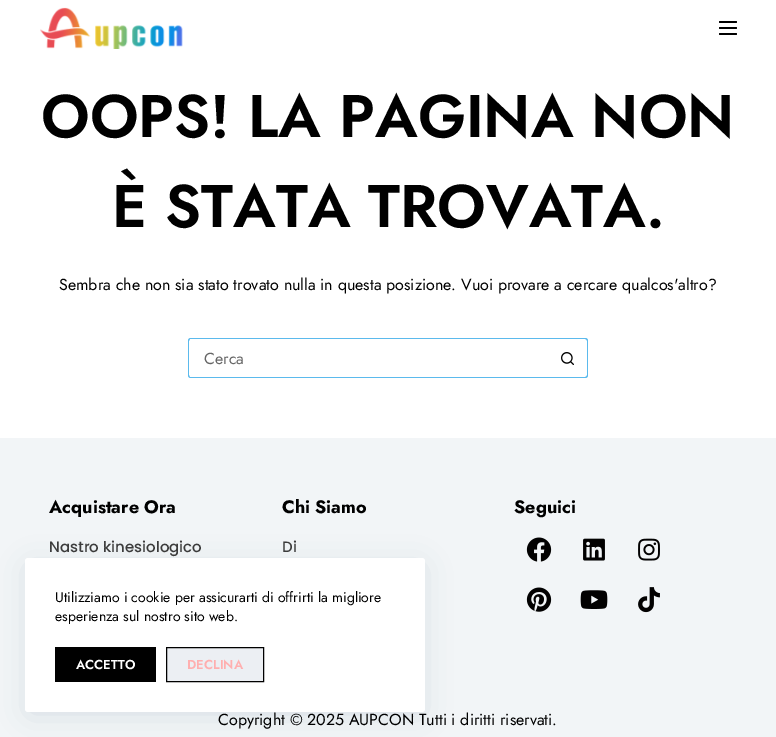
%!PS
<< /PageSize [776 737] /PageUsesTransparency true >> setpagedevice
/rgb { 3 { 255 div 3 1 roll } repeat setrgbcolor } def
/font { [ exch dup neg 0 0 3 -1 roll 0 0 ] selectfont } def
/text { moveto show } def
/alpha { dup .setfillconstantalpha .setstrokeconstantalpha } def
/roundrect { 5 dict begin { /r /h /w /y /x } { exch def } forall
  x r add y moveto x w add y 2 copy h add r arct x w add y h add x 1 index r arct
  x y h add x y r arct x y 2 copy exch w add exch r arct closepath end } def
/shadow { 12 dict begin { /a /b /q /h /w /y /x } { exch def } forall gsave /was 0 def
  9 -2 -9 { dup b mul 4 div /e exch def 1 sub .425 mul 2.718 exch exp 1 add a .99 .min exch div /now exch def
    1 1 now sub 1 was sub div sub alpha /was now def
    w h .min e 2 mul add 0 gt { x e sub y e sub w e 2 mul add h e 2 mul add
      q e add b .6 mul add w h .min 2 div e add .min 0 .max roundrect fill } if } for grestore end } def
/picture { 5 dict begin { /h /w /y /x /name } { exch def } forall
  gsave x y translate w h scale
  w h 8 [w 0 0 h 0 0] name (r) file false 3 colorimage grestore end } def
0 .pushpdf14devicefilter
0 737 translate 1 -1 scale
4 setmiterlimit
255 255 255 rgb
0 0 776 737 rectfill
(img_01.rgb) 40 7 143 42 picture
0 0 0 rgb
719 21 18 2 1 roundrect fill
719 27 18 2 1 roundrect fill
719 33 18 2 1 roundrect fill
91 186 237 rgb
191 338 moveto 357 0 rlineto 0 40 rlineto -357 0 rlineto -2 0 -3 -1 -3 -3 rcurveto 0 -34 rlineto 0 -2 1 -3 3 -3 rcurveto closepath 191 339 moveto 357 0 rlineto 0 38 rlineto -358 0 rlineto -2 -2 -1 -7 -1 -8 rcurveto 0 -28 rlineto 1 -2 rlineto closepath eofill
548 338 moveto 37 0 rlineto 2 0 3 1 3 3 rcurveto 0 34 rlineto 0 2 -1 3 -3 3 rcurveto -37 0 rlineto closepath 548 339 moveto 37 0 rlineto 1 0 2 1 2 2 rcurveto 0 34 rlineto 0 1 -1 2 -2 2 rcurveto -37 0 rlineto closepath eofill
(img_02.rgb) 561 352 13 13 picture
242 245 247 rgb
0 438 776 299 rectfill
(img_03.rgb) 526 537 26 25 picture
(img_04.rgb) 583 538 22 23 picture
(img_05.rgb) 638 538 22 23 picture
(img_06.rgb) 526 587 26 25 picture
(img_07.rgb) 580 590 28 19 picture
(img_08.rgb) 638 587 22 26 picture
34 56 101 rgb
30 568 390 144 0 15 0.15 shadow
255 255 255 rgb
25 558 400 154 3 roundrect fill
0 0 0 rgb
55 647 101 35 rectfill
236 239 243 rgb
166.5 647.5 moveto 97 0 rlineto 0 34 rlineto -97 0 rlineto closepath gsave fill grestore
0 0 0 rgb
stroke
/Jost-SemiBold 60 font
(OOPS! LA PAGINA NON) 41 137 text
(È STATA TROVATA.) 112 227 text
/Jost-Regular 16 font
(Sembra che non sia stato trovato nulla in questa posizione. Vuoi provare a cercare qualcos'altro?) 59 290 text
102 102 102 rgb
(Cerca) 204 364 text
/Jost-Bold 18 font
0 0 0 rgb
(Acquistare Ora) 49 513 text
/Poppins-Medium 15 font
60 60 60 rgb
(Nastro kinesiologico) 49 552 text
/Jost-Bold 18 font
0 0 0 rgb
(Chi Siamo) 282 513 text
/Poppins-Medium 15 font
60 60 60 rgb
(Di) 282 552 text
/Jost-Bold 18 font
0 0 0 rgb
(Seguici) 514 513 text
/Jost-Regular 16 font
(Copyright © 2025 AUPCON Tutti i diritti riservati.) 218 725 text
/Jost-Regular 14 font
(Utilizziamo i cookie per assicurarti di offrirti la migliore) 55 602 text
(esperienza sul nostro sito web.) 55 621 text
/Jost-SemiBold 13 font
255 255 255 rgb
(ACCETTO) 76 669 text
255 175 175 rgb
(DECLINA) 187 669 text
.poppdf14devicefilter showpage
